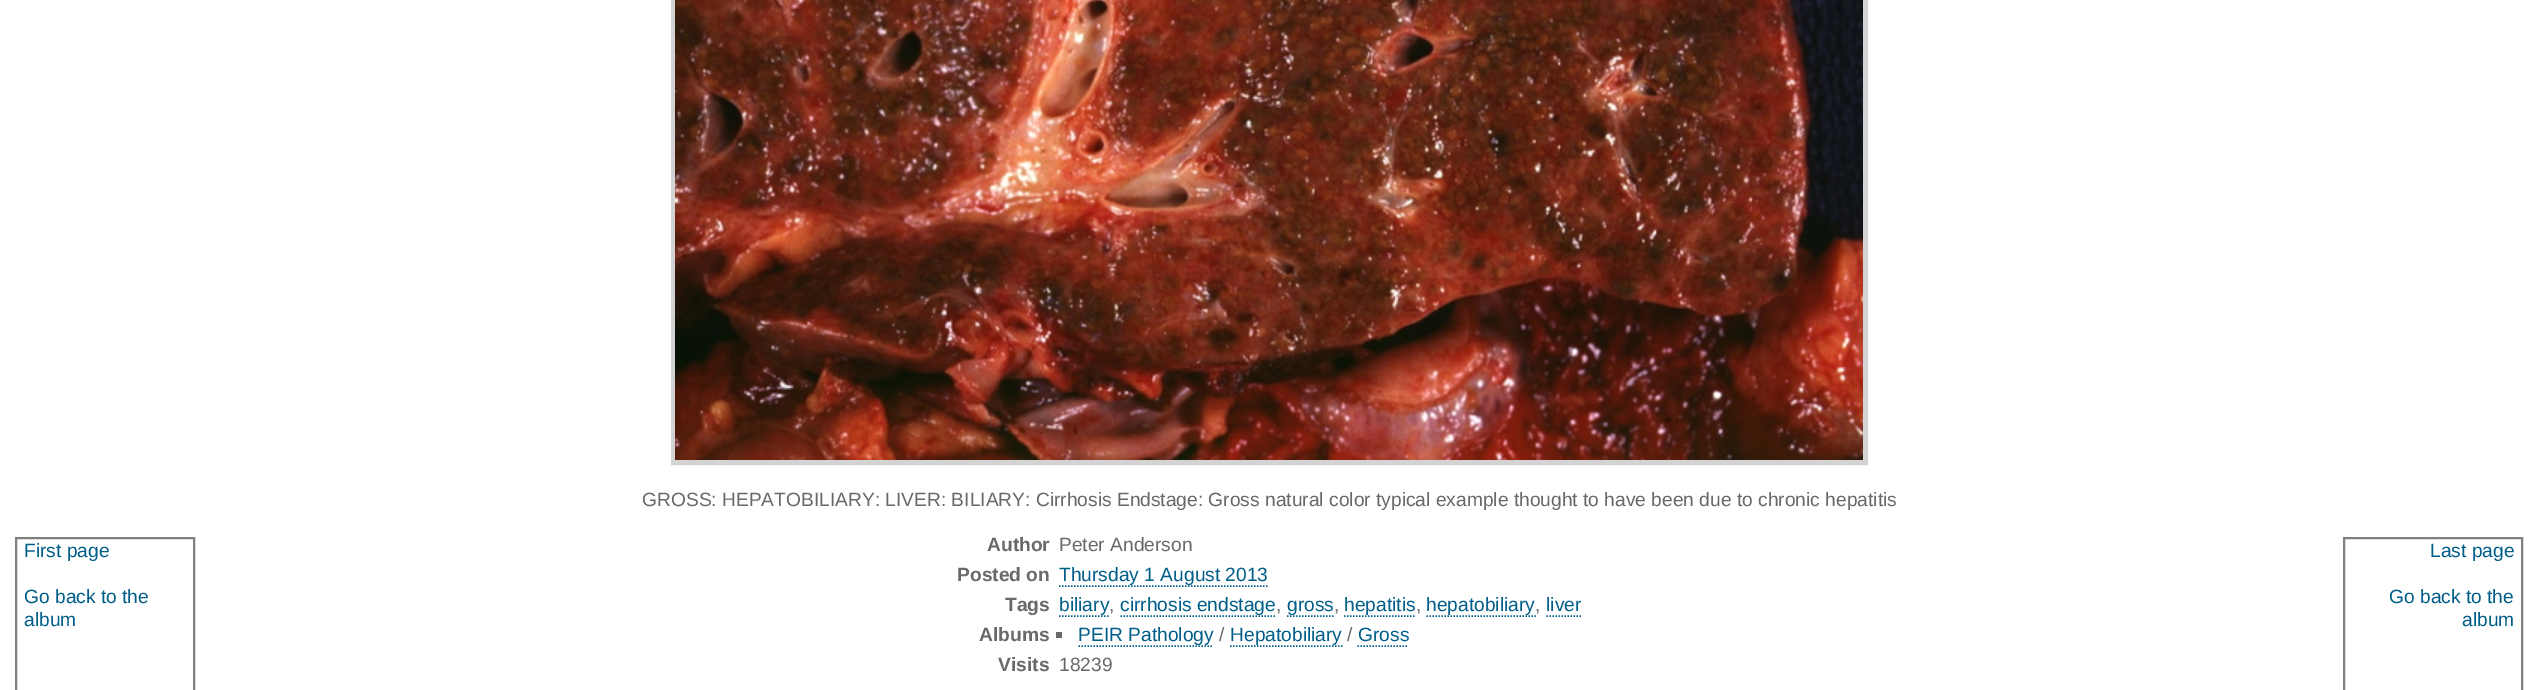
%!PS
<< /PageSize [2537 690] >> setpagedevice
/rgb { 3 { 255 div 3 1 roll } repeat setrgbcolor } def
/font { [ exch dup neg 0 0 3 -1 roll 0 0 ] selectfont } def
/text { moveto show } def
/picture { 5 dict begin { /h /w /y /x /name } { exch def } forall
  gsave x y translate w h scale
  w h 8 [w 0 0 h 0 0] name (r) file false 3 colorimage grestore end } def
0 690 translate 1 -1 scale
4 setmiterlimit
255 255 255 rgb
0 0 2537 690 rectfill
211 211 211 rgb
5 setlinewidth
673.5 -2.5 1192 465 rectstroke
(img_01.rgb) 675 0 1188 460 picture
0 94 137 rgb
1.5 setlinewidth
[1.5 1.5] 0 setdash
1059 586 moveto 210 0 rlineto stroke
1059 616 moveto 51 0 rlineto stroke
1120.5 616 moveto 156 0 rlineto stroke
1287 616 moveto 46.5 0 rlineto stroke
1344 616 moveto 72 0 rlineto stroke
1426.5 616 moveto 109.5 0 rlineto stroke
1546.5 616 moveto 34.5 0 rlineto stroke
105 105 105 rgb
1056 632 6 6 rectfill
0 94 137 rgb
1078.5 646 moveto 135 0 rlineto stroke
1230 646 moveto 112.5 0 rlineto stroke
1357.5 646 moveto 51 0 rlineto stroke
128 128 128 rgb
2 setlinewidth
[] 0 setdash
16 538 178 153 rectstroke
2344 538 178 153 rectstroke
/LiberationSans-Regular 19.2 font
105 105 105 rgb
(GROSS: HEPATOBILIARY: LIVER: BILIARY: Cirrhosis Endstage: Gross natural color typical example thought to have been due to chronic hepatitis) 642 506 text
/LiberationSans-Bold 19.2 font
(Author) 987 551 text
/LiberationSans-Regular 19.2 font
(Peter Anderson) 1059 551 text
/LiberationSans-Bold 19.2 font
(Posted on) 957 581 text
/LiberationSans-Regular 19.2 font
0 94 137 rgb
(Thursday 1 August 2013) 1059 581 text
/LiberationSans-Bold 19.2 font
105 105 105 rgb
(Tags) 1005 611 text
/LiberationSans-Regular 19.2 font
0 94 137 rgb
(biliary) 1059 611 text
105 105 105 rgb
(,) 1109 611 text
0 94 137 rgb
(cirrhosis endstage) 1120 611 text
105 105 105 rgb
(,) 1276 611 text
0 94 137 rgb
(gross) 1287 611 text
105 105 105 rgb
(,) 1334 611 text
0 94 137 rgb
(hepatitis) 1344 611 text
105 105 105 rgb
(,) 1416 611 text
0 94 137 rgb
(hepatobiliary) 1426 611 text
105 105 105 rgb
(,) 1535 611 text
0 94 137 rgb
(liver) 1546 611 text
/LiberationSans-Bold 19.2 font
105 105 105 rgb
(Albums) 979 641 text
/LiberationSans-Regular 19.2 font
0 94 137 rgb
(PEIR Pathology) 1078 641 text
105 105 105 rgb
(/) 1219 641 text
0 94 137 rgb
(Hepatobiliary) 1230 641 text
105 105 105 rgb
(/) 1347 641 text
0 94 137 rgb
(Gross) 1358 641 text
/LiberationSans-Bold 19.2 font
105 105 105 rgb
(Visits) 998 671 text
/LiberationSans-Regular 19.2 font
(18239) 1059 671 text
0 94 137 rgb
(First page) 24 557 text
(Go back to the) 24 603 text
(album) 24 626 text
(Last page) 2430 557 text
(Go back to the) 2389 603 text
(album) 2462 626 text
showpage
